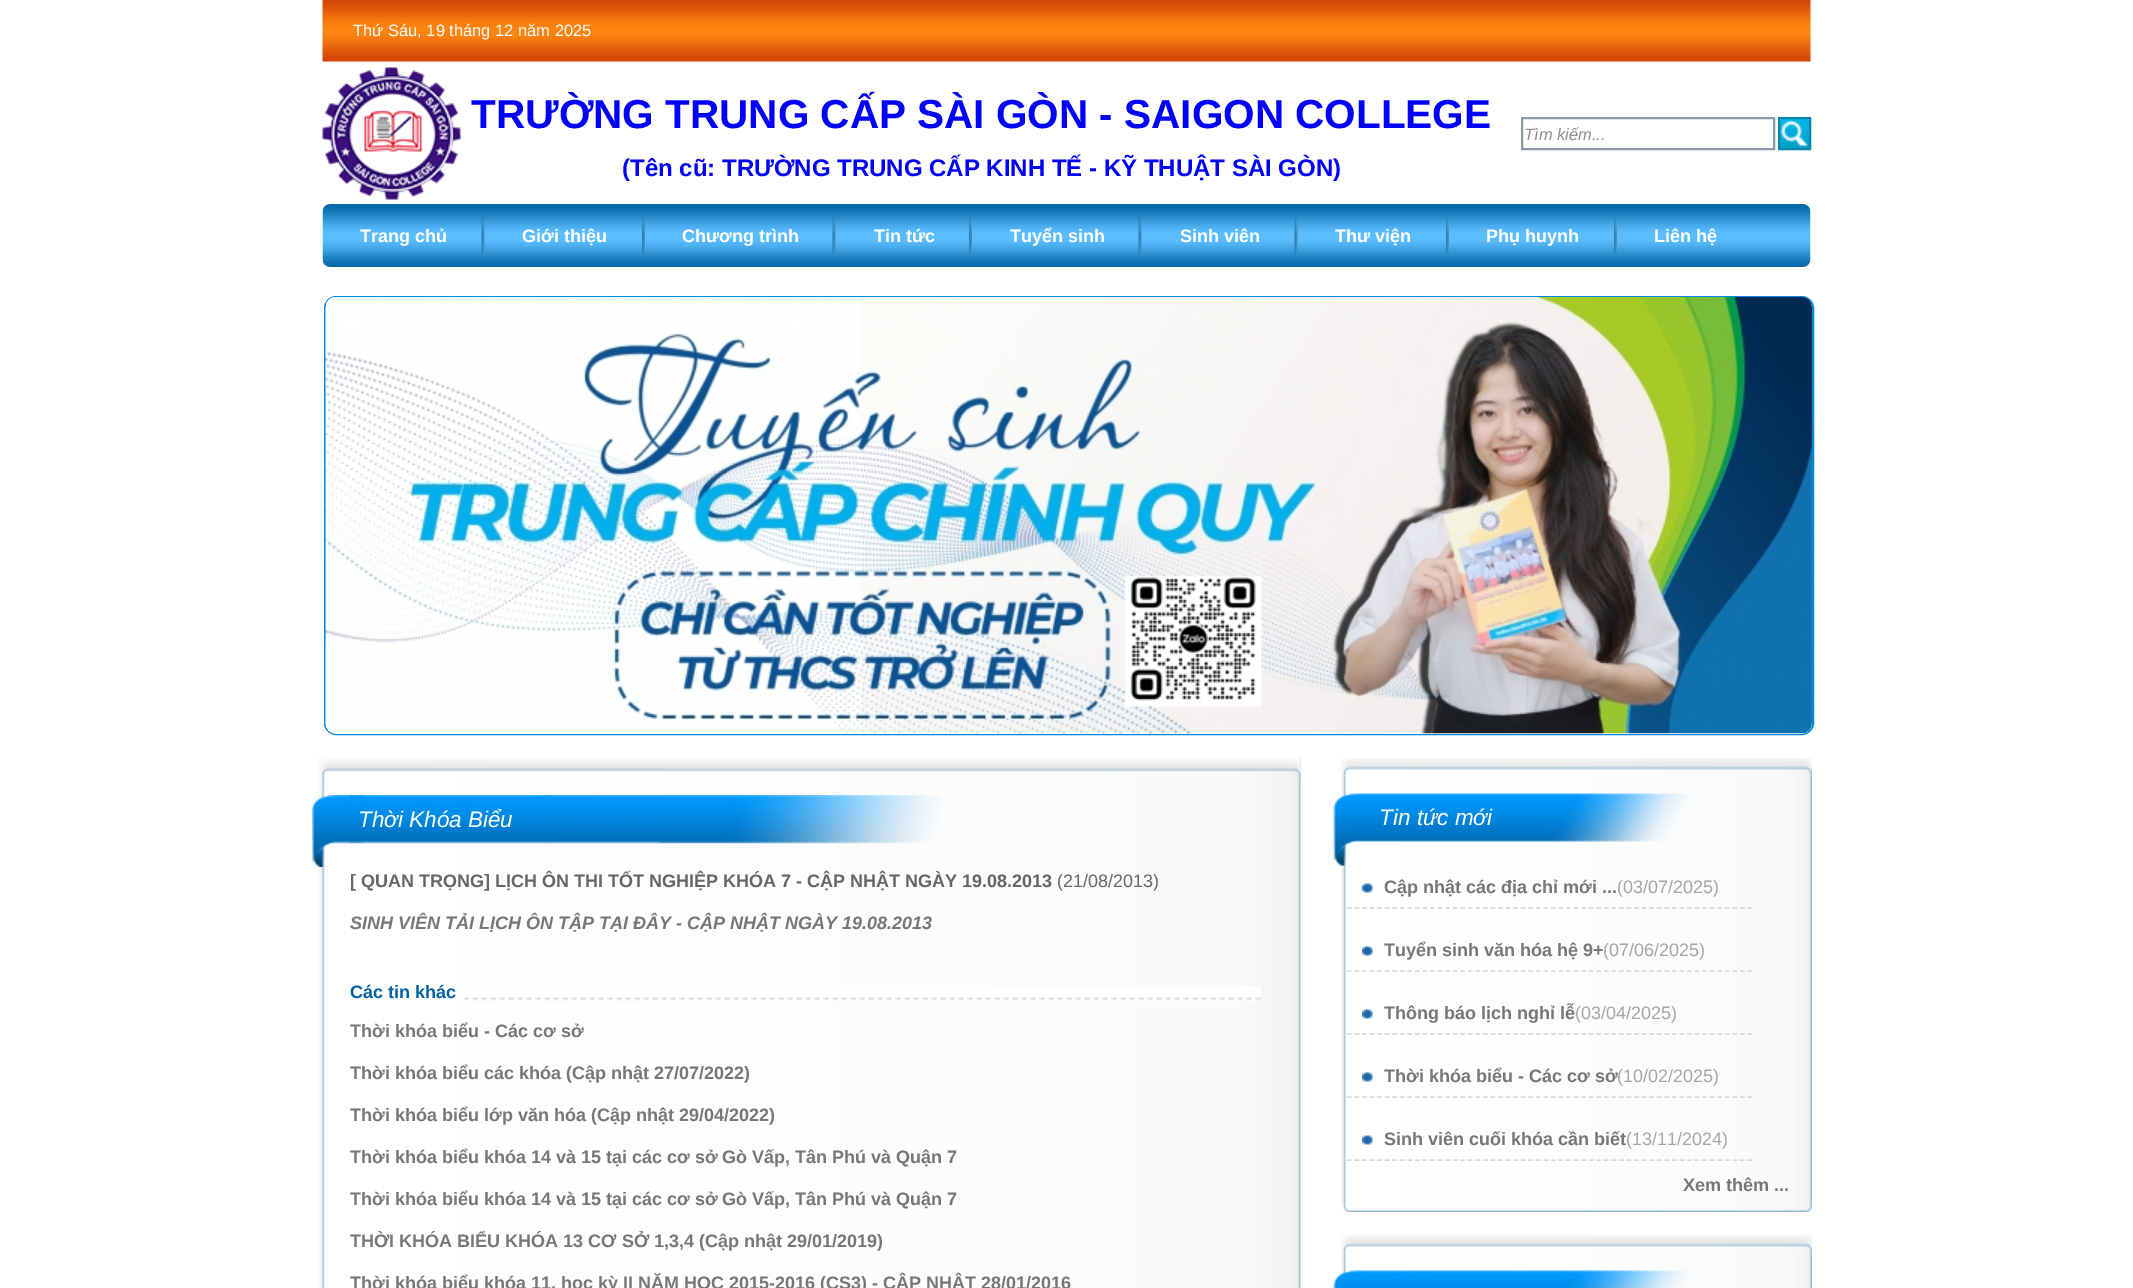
%!PS
<< /PageSize [2133 1288] >> setpagedevice
/rgb { 3 { 255 div 3 1 roll } repeat setrgbcolor } def
/font { [ exch dup neg 0 0 3 -1 roll 0 0 ] selectfont } def
/text { moveto show } def
/roundrect { 5 dict begin { /r /h /w /y /x } { exch def } forall
  x r add y moveto x w add y 2 copy h add r arct x w add y h add x 1 index r arct
  x y h add x y r arct x y 2 copy exch w add exch r arct closepath end } def
/picture { 5 dict begin { /h /w /y /x /name } { exch def } forall
  gsave x y translate w h scale
  w h 8 [w 0 0 h 0 0] name (r) file false 3 colorimage grestore end } def
0 1288 translate 1 -1 scale
4 setmiterlimit
255 255 255 rgb
0 0 2133 1288 rectfill
(img_01.rgb) 322 0 1489 62 picture
(img_02.rgb) 322 67 139 133 picture
140 153 169 rgb
2 setlinewidth
1522 118 252 31 rectstroke
(img_03.rgb) 1780 119 29 29 picture
0 135 174 rgb
1779 118 31 31 rectstroke
(img_04.rgb) 322 204 1489 63 picture
(img_05.rgb) 481 214 4 41 picture
(img_06.rgb) 642 214 3 41 picture
(img_05.rgb) 832 214 4 41 picture
(img_06.rgb) 969 214 3 41 picture
(img_05.rgb) 1138 214 4 41 picture
(img_05.rgb) 1294 214 4 41 picture
(img_06.rgb) 1446 214 3 41 picture
(img_06.rgb) 1614 214 3 41 picture
0 137 226 rgb
325 297 1488 437 11 roundrect stroke
(img_07.rgb) 325 297 1487 437 picture
255 255 255 rgb
326 297 1486 437 11 roundrect fill
(img_08.rgb) 325 297 1487 437 picture
(img_09.rgb) 325 297 119 89 picture
(img_10.rgb) 1600 297 212 89 picture
(img_12.rgb) 586 385 127 1 picture
(img_11.rgb) 538 385 214 88 picture
(img_13.rgb) 751 385 214 88 picture
(img_14.rgb) 1020 385 106 1 picture
(img_15.rgb) 1538 385 63 88 picture
(img_16.rgb) 751 472 214 59 picture
(img_17.rgb) 1389 472 212 88 picture
(img_18.rgb) 325 560 1 86 picture
(img_19.rgb) 964 559 214 88 picture
(img_20.rgb) 1177 559 212 88 picture
(img_21.rgb) 1389 559 212 88 picture
(img_22.rgb) 1600 559 161 88 picture
(img_23.rgb) 325 646 10 88 picture
(img_24.rgb) 964 646 214 88 picture
(img_25.rgb) 1177 646 212 88 picture
(img_26.rgb) 318 757 983 531 picture
(img_27.rgb) 319 757 982 20 picture
(img_28.rgb) 312 795 629 72 picture
(img_29.rgb) 464 986 797 16 picture
(img_30.rgb) 1340 758 472 18 picture
(img_31.rgb) 1341 775 471 430 picture
(img_32.rgb) 1333 793 356 73 picture
217 217 217 rgb
1.5 setlinewidth
[4.5 3.06] 0 setdash
1347 908 moveto 405 0 rlineto stroke
(img_33.rgb) 1362 883 11 10 picture
1347 971 moveto 405 0 rlineto stroke
(img_33.rgb) 1362 946 11 10 picture
1347 1034 moveto 405 0 rlineto stroke
(img_33.rgb) 1362 1009 11 10 picture
1347 1097 moveto 405 0 rlineto stroke
(img_33.rgb) 1362 1072 11 10 picture
1347 1160 moveto 405 0 rlineto stroke
(img_33.rgb) 1362 1135 11 10 picture
(img_34.rgb) 1342 1204 470 8 picture
(img_35.rgb) 1340 1234 472 19 picture
(img_36.rgb) 1341 1252 471 36 picture
(img_37.rgb) 1333 1270 356 18 picture
/LiberationSans-Regular 16.5 font
255 255 255 rgb
(Thứ Sáu, 19 tháng 12 năm 2025) 353 36 text
/LiberationSans-Bold 40.5 font
0 0 255 rgb
(TRƯỜNG TRUNG CẤP SÀI GÒN - SAIGON COLLEGE) 471 128 text
/LiberationSans-Bold 24 font
(\(Tên cũ: TRƯỜNG TRUNG CẤP KINH TẾ - KỸ THUẬT SÀI GÒN\)) 622 176 text
/LiberationSans-Italic 16.5 font
142 142 142 rgb
(Tìm kiếm...) 1524 140 text
/LiberationSans-Bold 18 font
255 255 255 rgb
(Trang chủ) 360 242 text
(Giới thiệu) 522 242 text
(Chương trình) 682 242 text
(Tin tức) 874 242 text
(Tuyển sinh) 1010 242 text
(Sinh viên) 1180 242 text
(Thư viện) 1335 242 text
(Phụ huynh) 1486 242 text
(Liên hệ) 1654 242 text
/LiberationSans-Italic 22.5 font
(Thời Khóa Biểu) 358 827 text
/LiberationSans-Bold 18 font
102 102 102 rgb
([ QUAN TRỌNG] LỊCH ÔN THI TỐT NGHIỆP KHÓA 7 - CẬP NHẬT NGÀY 19.08.2013) 350 887 text
/LiberationSans-Regular 18 font
(\(21/08/2013\)) 1057 887 text
/LiberationSans-BoldItalic 18 font
120 119 119 rgb
(SINH VIÊN TẢI LỊCH ÔN TẬP TẠI ĐÂY - CẬP NHẬT NGÀY 19.08.2013) 350 929 text
/LiberationSans-Bold 18 font
0 97 162 rgb
(Các tin khác) 350 998 text
120 119 119 rgb
(Thời khóa biểu - Các cơ sở) 350 1037 text
(Thời khóa biểu các khóa \(Cập nhật 27/07/2022\)) 350 1079 text
(Thời khóa biểu lớp văn hóa \(Cập nhật 29/04/2022\)) 350 1121 text
(Thời khóa biểu khóa 14 và 15 tại các cơ sở Gò Vấp, Tân Phú và Quận 7) 350 1163 text
(Thời khóa biểu khóa 14 và 15 tại các cơ sở Gò Vấp, Tân Phú và Quận 7) 350 1205 text
(THỜI KHÓA BIỂU KHÓA 13 CƠ SỞ 1,3,4 \(Cập nhật 29/01/2019\)) 350 1247 text
(Thời khóa biểu khóa 11, học kỳ II NĂM HỌC 2015-2016 \(CS3\) - CẬP NHẬT 28/01/2016) 350 1289 text
/LiberationSans-Italic 22.5 font
255 255 255 rgb
(Tin tức mới) 1379 825 text
/LiberationSans-Bold 18 font
120 119 119 rgb
(Cập nhật các địa chỉ mới ...) 1384 893 text
/LiberationSans-Regular 18 font
166 166 166 rgb
(\(03/07/2025\)) 1617 893 text
/LiberationSans-Bold 18 font
120 119 119 rgb
(Tuyển sinh văn hóa hệ 9+) 1384 956 text
/LiberationSans-Regular 18 font
166 166 166 rgb
(\(07/06/2025\)) 1603 956 text
/LiberationSans-Bold 18 font
120 119 119 rgb
(Thông báo lịch nghỉ lễ) 1384 1019 text
/LiberationSans-Regular 18 font
166 166 166 rgb
(\(03/04/2025\)) 1575 1019 text
/LiberationSans-Bold 18 font
120 119 119 rgb
(Thời khóa biểu - Các cơ sở) 1384 1082 text
/LiberationSans-Regular 18 font
166 166 166 rgb
(\(10/02/2025\)) 1617 1082 text
/LiberationSans-Bold 18 font
120 119 119 rgb
(Sinh viên cuối khóa cần biết) 1384 1145 text
/LiberationSans-Regular 18 font
166 166 166 rgb
(\(13/11/2024\)) 1626 1145 text
/LiberationSans-Bold 18 font
120 119 119 rgb
(Xem thêm ...) 1683 1191 text
showpage
